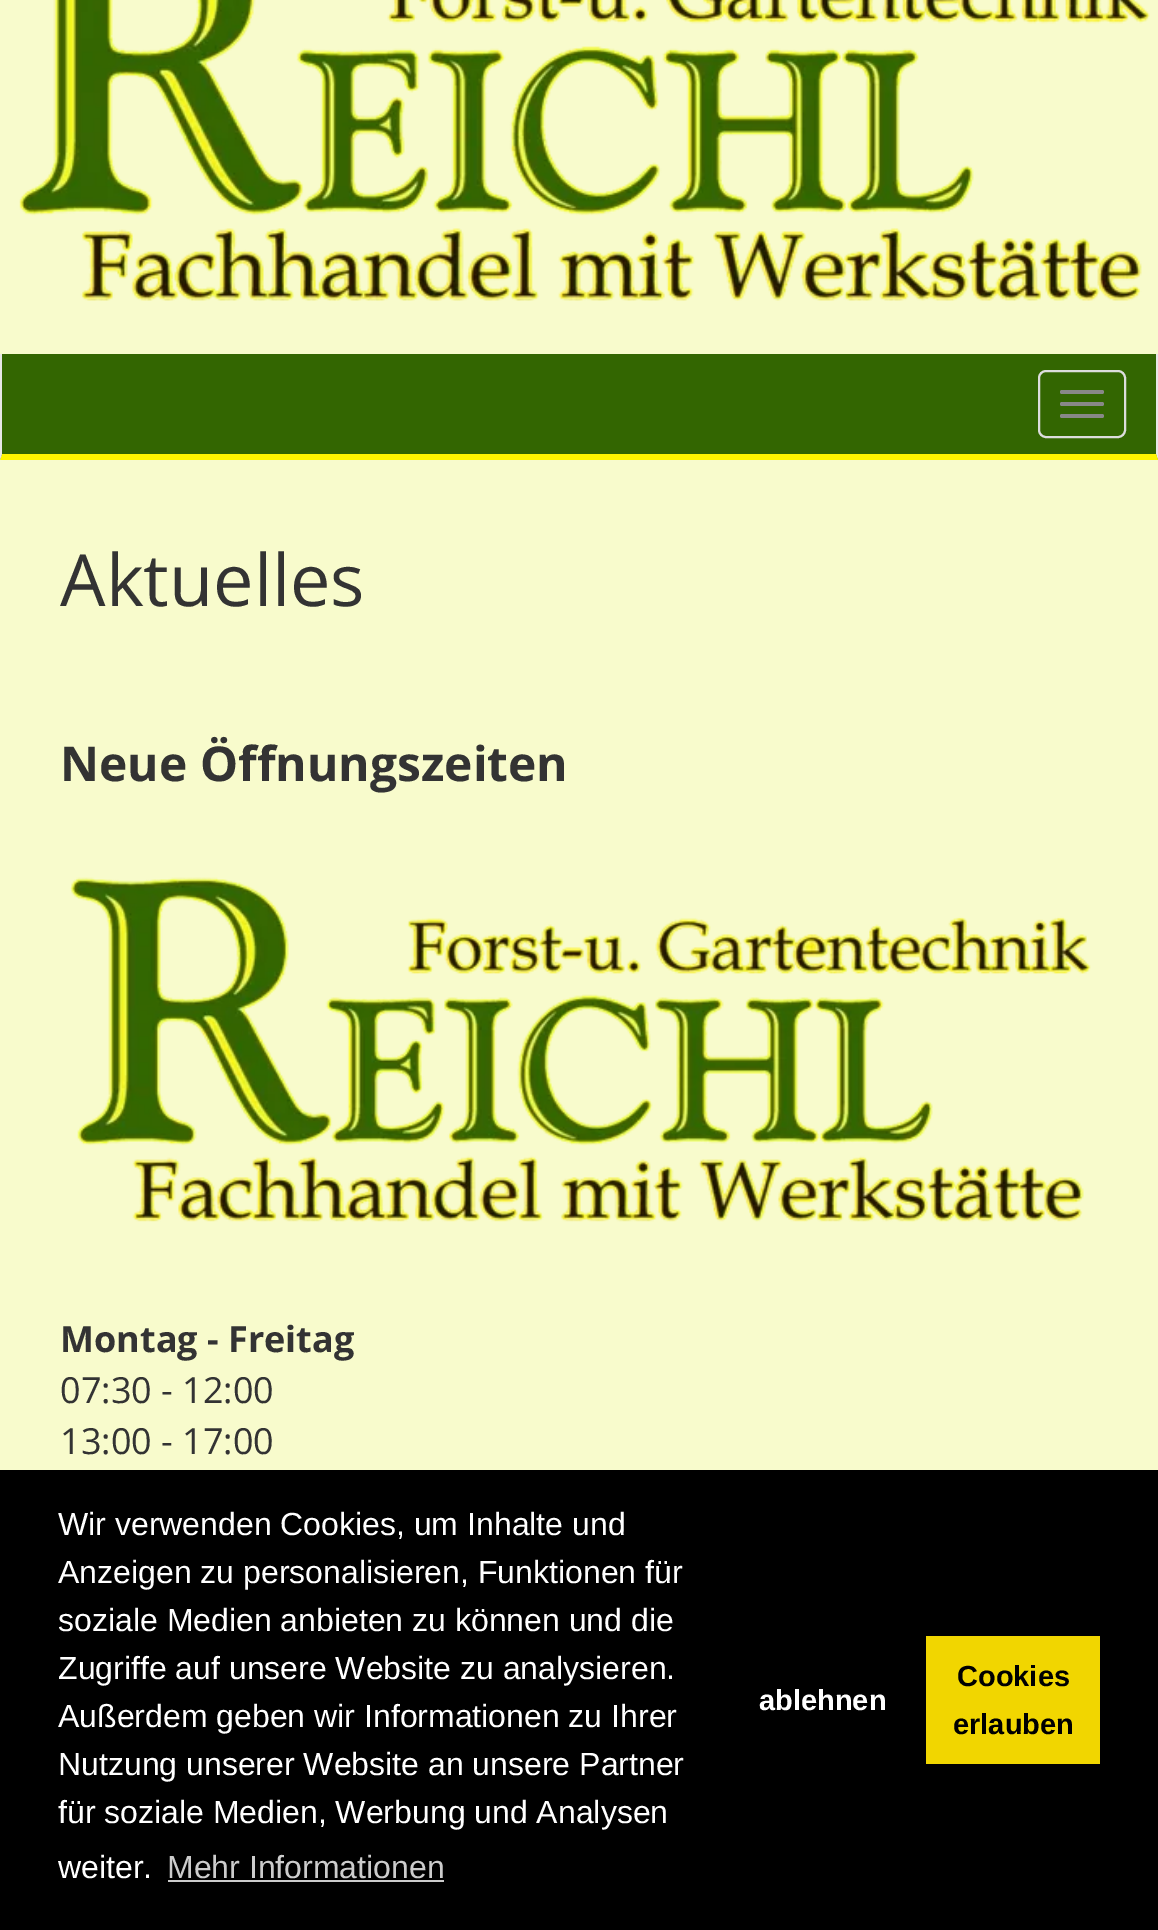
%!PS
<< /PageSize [1158 1930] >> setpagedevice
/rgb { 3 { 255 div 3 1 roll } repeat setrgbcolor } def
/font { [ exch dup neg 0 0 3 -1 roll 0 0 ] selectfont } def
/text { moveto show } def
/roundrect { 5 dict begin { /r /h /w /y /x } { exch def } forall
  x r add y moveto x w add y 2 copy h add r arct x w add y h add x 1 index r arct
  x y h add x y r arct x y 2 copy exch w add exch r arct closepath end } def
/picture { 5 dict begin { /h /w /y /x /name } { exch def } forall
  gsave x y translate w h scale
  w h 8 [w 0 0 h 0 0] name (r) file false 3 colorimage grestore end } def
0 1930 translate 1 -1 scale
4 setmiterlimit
248 251 204 rgb
0 0 1158 1930 rectfill
(img_01.rgb) 19 0 1131 301 picture
51 102 1 rgb
0 354 1158 106 rectfill
231 231 231 rgb
1158 354 moveto 0 106 rlineto -2 -6 rlineto 0 -100 rlineto closepath fill
255 245 0 rgb
1158 460 moveto -1158 0 rlineto 2 -6 rlineto 1154 0 rlineto closepath fill
231 231 231 rgb
0 460 moveto 0 -106 rlineto 2 0 rlineto 0 100 rlineto closepath fill
221 221 221 rgb
2 setlinewidth
1039 371 86 66 7 roundrect stroke
136 136 136 rgb
1060 390 44 4 2 roundrect fill
1060 402 44 4 2 roundrect fill
1060 414 44 4 2 roundrect fill
(img_02.rgb) 70 877 1021 345 picture
0 0 0 rgb
0 1470 1158 460 rectfill
204 204 204 rgb
168 1880 276 2 rectfill
241 214 0 rgb
926 1636 174 128 rectfill
/OpenSans-Regular 72 font
51 51 51 rgb
(Aktuelles) 60 606 text
/OpenSans-Bold 48 font
(Neue Öffnungszeiten) 60 781 text
/OpenSans-Bold 36 font
(Montag - Freitag) 60 1352 text
/OpenSans-Regular 36 font
(07:30 - 12:00) 60 1403 text
(13:00 - 17:00) 60 1454 text
/LiberationSans-Regular 32 font
255 255 255 rgb
(Wir verwenden Cookies, um Inhalte und) 58 1535 text
(Anzeigen zu personalisieren, Funktionen für) 58 1583 text
(soziale Medien anbieten zu können und die) 58 1631 text
(Zugriffe auf unsere Website zu analysieren.) 58 1679 text
(Außerdem geben wir Informationen zu Ihrer) 58 1727 text
(Nutzung unserer Website an unsere Partner) 58 1775 text
(für soziale Medien, Werbung und Analysen) 58 1823 text
(weiter.) 58 1878 text
204 204 204 rgb
(Mehr Informationen) 167 1878 text
/LiberationSans-Bold 29 font
255 255 255 rgb
(ablehnen) 759 1710 text
0 0 0 rgb
(Cookies) 957 1686 text
(erlauben) 953 1734 text
showpage
